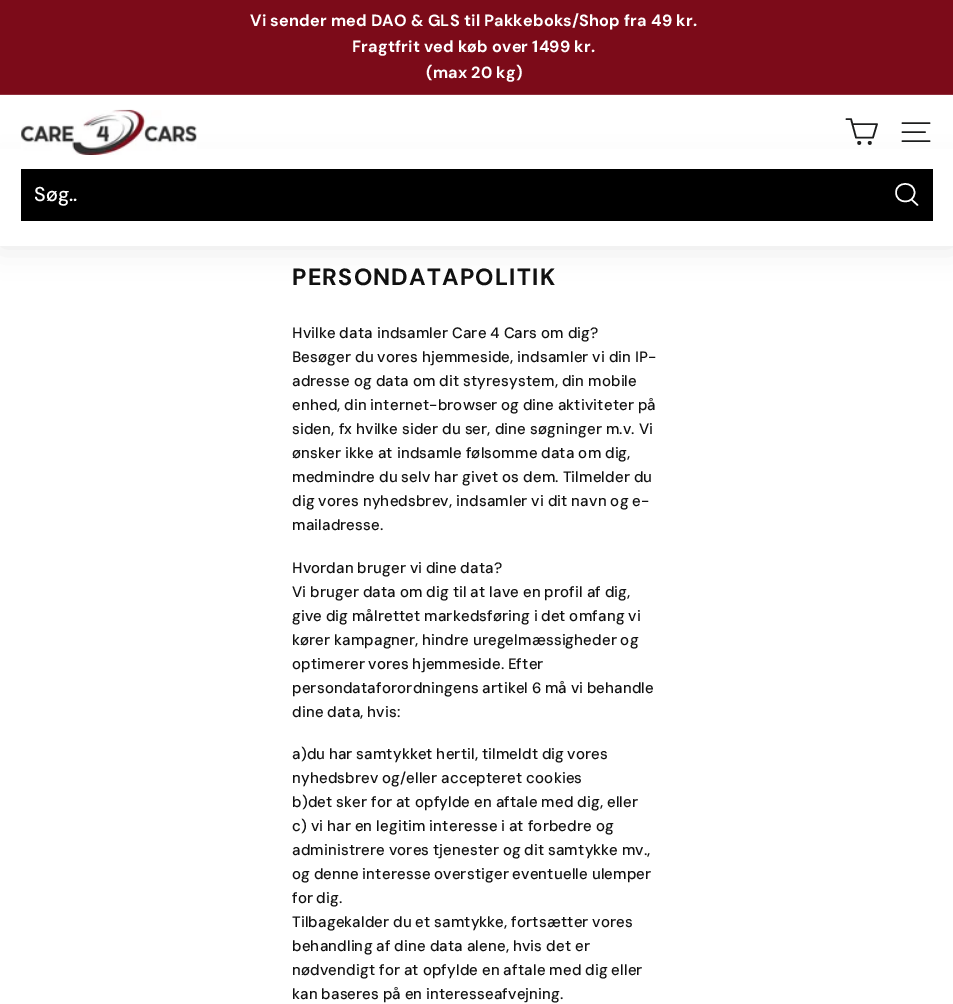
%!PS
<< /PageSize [953 1004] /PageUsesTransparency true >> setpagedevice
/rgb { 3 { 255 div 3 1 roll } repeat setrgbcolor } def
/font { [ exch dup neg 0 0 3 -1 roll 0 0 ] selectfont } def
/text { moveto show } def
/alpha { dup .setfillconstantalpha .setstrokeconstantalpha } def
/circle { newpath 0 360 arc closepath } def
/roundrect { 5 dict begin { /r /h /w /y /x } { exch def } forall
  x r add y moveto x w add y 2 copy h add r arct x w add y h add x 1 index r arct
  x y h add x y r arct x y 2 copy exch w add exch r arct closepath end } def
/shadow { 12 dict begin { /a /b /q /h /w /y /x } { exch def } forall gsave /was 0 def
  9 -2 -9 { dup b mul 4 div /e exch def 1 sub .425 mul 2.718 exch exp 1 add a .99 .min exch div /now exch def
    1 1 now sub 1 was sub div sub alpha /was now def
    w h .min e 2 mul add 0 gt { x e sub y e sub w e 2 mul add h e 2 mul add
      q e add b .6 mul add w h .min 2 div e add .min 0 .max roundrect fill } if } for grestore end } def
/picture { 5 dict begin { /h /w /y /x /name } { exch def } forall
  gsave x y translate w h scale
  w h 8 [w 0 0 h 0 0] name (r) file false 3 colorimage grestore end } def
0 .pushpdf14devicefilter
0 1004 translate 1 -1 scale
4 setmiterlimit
255 255 255 rgb
0 0 953 1004 rectfill
124 11 25 rgb
0 0 953 94 rectfill
144 48 60 rgb
0 94 953 1 rectfill
0 0 0 rgb
0 169 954 77 0 15.5 0.1 shadow
255 255 255 rgb
0 149 953 97 rectfill
(img_01.rgb) 21 109 176 46 picture
28 29 29 rgb
1.6 setlinewidth
1 setlinecap
1 setlinejoin
852.5 124 moveto 24.5 0 rlineto -4 13.5 rlineto -17 0 rlineto -5 -18.5 rlineto -4.5 0 rlineto stroke
0 setlinecap
0 setlinejoin
859.2 142.9 1.1 circle stroke
869.8 142.9 1.1 circle stroke
1 setlinecap
1 setlinejoin
902.5 123 moveto 27 0 rlineto 902.5 132 moveto 22.5 0 rlineto 902.5 141 moveto 27 0 rlineto stroke
0 0 0 rgb
21 169 912 52 rectfill
255 255 255 rgb
1.5 setlinewidth
914.5 192.5 moveto 0 12 -18.5 12 -18.5 0 rcurveto 0 -11.5 18.5 -11.5 18.5 0 rcurveto closepath 917.5 205 moveto -6 -5.5 rlineto stroke
/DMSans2-Bold 16.25 font
250 26 moveto 0.15 0 (Vi sender med DAO & GLS til Pakkeboks/Shop fra 49 kr.) ashow
352 52 moveto 0.15 0 (Fragtfrit ved køb over 1499 kr.) ashow
426 78 moveto 0.15 0 (\(max 20 kg\)) ashow
/DMSans2-Medium 20 font
(Søg..) 34 201 text
/DMSans-Bold 23.4 font
17 17 17 rgb
292 285 moveto 1.2 0 (PERSONDATAPOLITIK) ashow
/DMSans-Medium 15 font
292 338 moveto -0.25 0 32 0.15 0 (Hvilke data indsamler Care 4 Cars om dig?) awidthshow
292 362 moveto -0.25 0 32 0.15 0 (Besøger du vores hjemmeside, indsamler vi din IP-) awidthshow
292 386 moveto -0.25 0 32 0.15 0 (adresse og data om dit styresystem, din mobile) awidthshow
292 410 moveto -0.5 0 32 0.15 0 (enhed, din internet-browser og dine aktiviteter på) awidthshow
292 434 moveto -0.25 0 32 0.15 0 (siden, fx hvilke sider du ser, dine søgninger m.v. Vi) awidthshow
292 458 moveto -0.25 0 32 0.15 0 (ønsker ikke at indsamle følsomme data om dig,) awidthshow
292 482 moveto -0.25 0 32 0.15 0 (medmindre du selv har givet os dem. Tilmelder du) awidthshow
292 506 moveto -0.25 0 32 0.15 0 (dig vores nyhedsbrev, indsamler vi dit navn og e-) awidthshow
292 530 moveto 0.15 0 (mailadresse.) ashow
292 573 moveto -0.5 0 32 0.15 0 (Hvordan bruger vi dine data?) awidthshow
292 597 moveto -0.25 0 32 0.15 0 (Vi bruger data om dig til at lave en profil af dig,) awidthshow
292 621 moveto -0.5 0 32 0.15 0 (give dig målrettet markedsføring i det omfang vi) awidthshow
292 645 moveto -0.5 0 32 0.15 0 (kører kampagner, hindre uregelmæssigheder og) awidthshow
292 669 moveto -0.5 0 32 0.15 0 (optimerer vores hjemmeside. Efter) awidthshow
292 693 moveto -0.5 0 32 0.15 0 (persondataforordningens artikel 6 må vi behandle) awidthshow
292 717 moveto -0.5 0 32 0.15 0 (dine data, hvis:) awidthshow
292 759 moveto -0.5 0 32 0.15 0 (a\)du har samtykket hertil, tilmeldt dig vores) awidthshow
292 783 moveto -0.5 0 32 0.15 0 (nyhedsbrev og/eller accepteret cookies) awidthshow
292 807 moveto -0.25 0 32 0.15 0 (b\)det sker for at opfylde en aftale med dig, eller) awidthshow
292 831 moveto -0.25 0 32 0.15 0 (c\) vi har en legitim interesse i at forbedre og) awidthshow
292 855 moveto -0.5 0 32 0.15 0 (administrere vores tjenester og dit samtykke mv.,) awidthshow
292 879 moveto -0.5 0 32 0.15 0 (og denne interesse overstiger eventuelle ulemper) awidthshow
292 903 moveto -1 0 32 0.15 0 (for dig.) awidthshow
292 927 moveto -0.5 0 32 0.15 0 (Tilbagekalder du et samtykke, fortsætter vores) awidthshow
292 951 moveto -0.25 0 32 0.15 0 (behandling af dine data alene, hvis det er) awidthshow
292 975 moveto -0.25 0 32 0.15 0 (nødvendigt for at opfylde en aftale med dig eller) awidthshow
292 999 moveto -0.5 0 32 0.15 0 (kan baseres på en interesseafvejning.) awidthshow
.poppdf14devicefilter showpage
